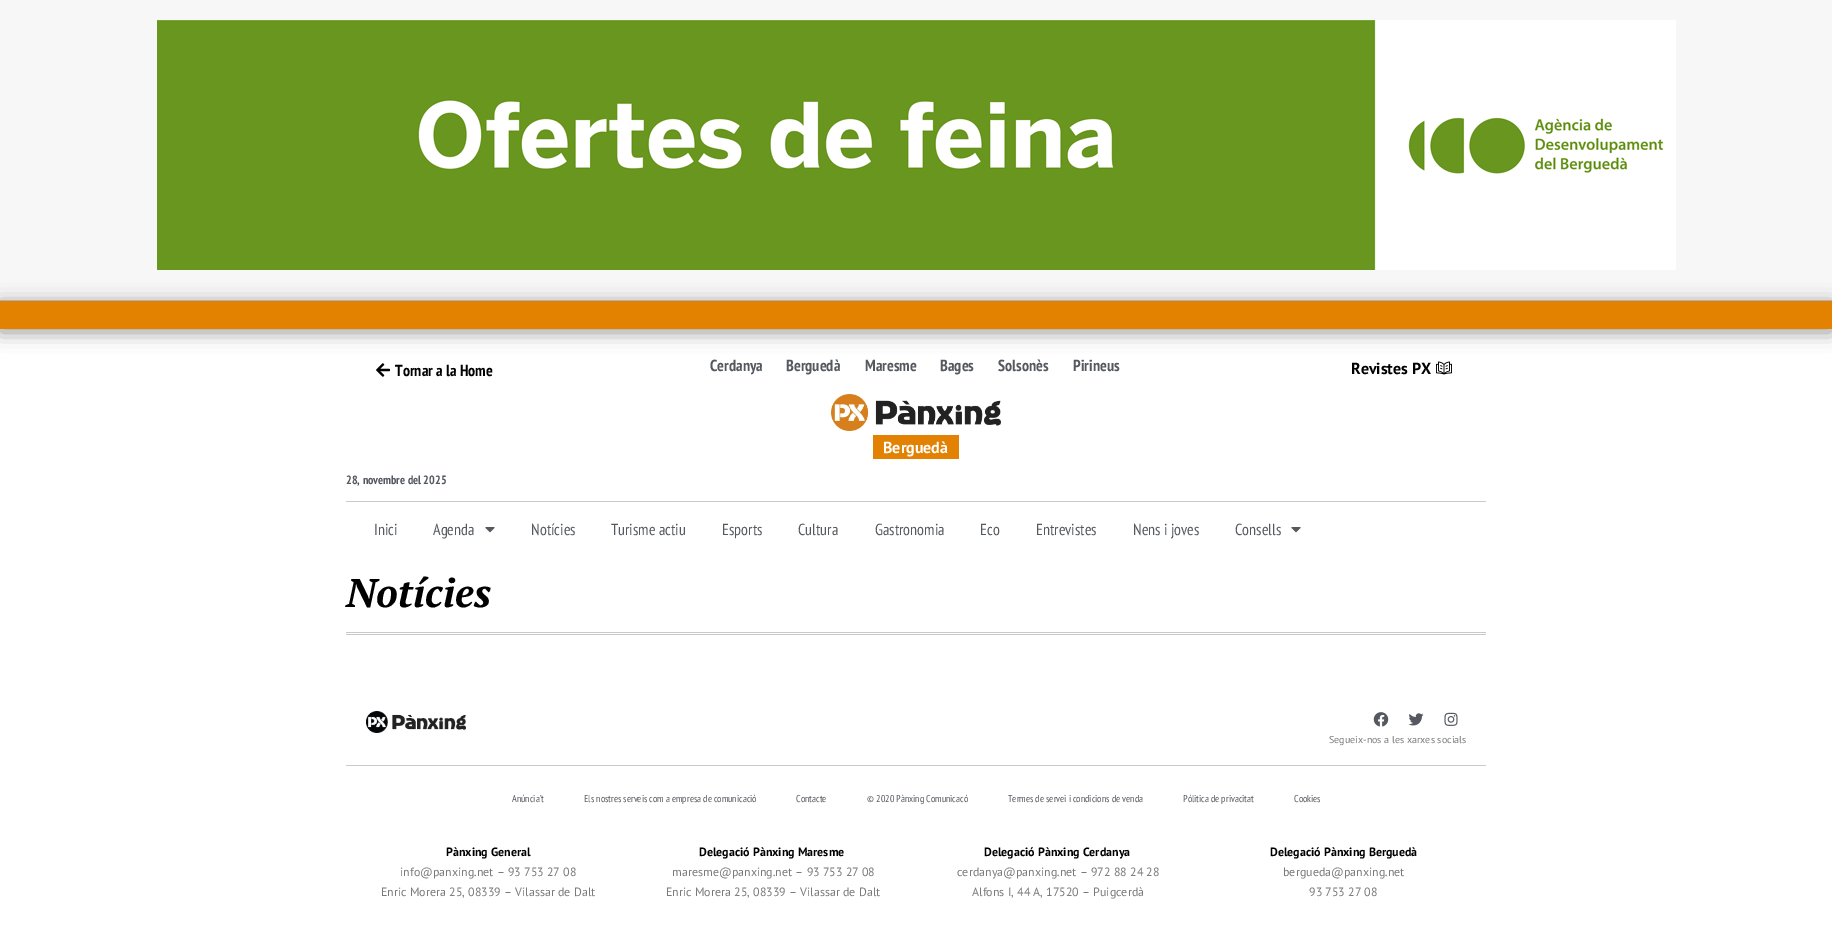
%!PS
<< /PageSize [1832 939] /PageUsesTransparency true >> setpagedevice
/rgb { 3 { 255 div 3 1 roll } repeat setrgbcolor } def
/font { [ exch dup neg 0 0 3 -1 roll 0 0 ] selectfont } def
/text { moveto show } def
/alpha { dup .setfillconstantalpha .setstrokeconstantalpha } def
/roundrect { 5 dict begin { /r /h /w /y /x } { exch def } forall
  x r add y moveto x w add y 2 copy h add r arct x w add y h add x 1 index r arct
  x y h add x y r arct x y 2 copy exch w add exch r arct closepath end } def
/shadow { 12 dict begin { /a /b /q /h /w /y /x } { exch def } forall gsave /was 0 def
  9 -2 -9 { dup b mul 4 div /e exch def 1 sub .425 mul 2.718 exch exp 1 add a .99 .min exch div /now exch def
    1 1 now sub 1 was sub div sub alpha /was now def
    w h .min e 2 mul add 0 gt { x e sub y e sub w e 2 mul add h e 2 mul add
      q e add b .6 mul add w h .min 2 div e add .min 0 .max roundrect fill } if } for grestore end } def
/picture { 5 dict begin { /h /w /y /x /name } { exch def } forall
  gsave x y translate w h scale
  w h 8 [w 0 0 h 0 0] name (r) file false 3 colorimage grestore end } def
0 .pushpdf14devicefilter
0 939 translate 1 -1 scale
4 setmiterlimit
255 255 255 rgb
0 0 1832 939 rectfill
247 247 247 rgb
0 0 1832 300 rectfill
202 202 202 rgb
0 300 1832 1 rectfill
(img_01.rgb) 157 20 1519 250 picture
0 0 0 rgb
0 304 1832 28 0 9.5 0.42 shadow
227 129 1 rgb
0 301 1832 28 rectfill
(img_02.rgb) 376 363 14 14 picture
(img_03.rgb) 1436 361 16 14 picture
(img_04.rgb) 831 394 170 37 picture
227 129 3 rgb
873 435 86 24 rectfill
202 202 202 rgb
346 501 1140 1 rectfill
(img_05.rgb) 485 527 10 6 picture
(img_05.rgb) 1291 527 10 6 picture
346 632 1140 1 rectfill
346 634 1140 1 rectfill
(img_06.rgb) 366 711 100 22 picture
(img_07.rgb) 1373 712 16 15 picture
(img_08.rgb) 1408 713 16 13 picture
(img_09.rgb) 1444 712 14 14 picture
346 765 1140 1 rectfill
/PTSansNarrow-Bold 16 font
0 0 0 rgb
(Tornar a la Home) 395 376 text
84 89 95 rgb
(Cerdanya) 710 371 text
(Berguedà) 786 371 text
(Maresme) 865 371 text
(Bages) 940 371 text
(Solsonès) 998 371 text
(Pirineus) 1073 371 text
/PTSans-Bold 16 font
0 0 0 rgb
(Revistes PX) 1351 374 text
255 255 255 rgb
(Berguedà) 883 453 text
/PTSansNarrow-Bold 12 font
84 89 95 rgb
(28, novembre del 2025) 346 484 text
/PTSansNarrow-Regular 16 font
(Inici) 374 535 text
(Agenda) 433 535 text
(Notícies) 531 535 text
(Turisme actiu) 611 535 text
(Esports) 722 535 text
(Cultura) 798 535 text
(Gastronomia) 875 535 text
(Eco) 980 535 text
(Entrevistes) 1036 535 text
(Nens i joves) 1133 535 text
(Consells) 1235 535 text
/PTSerif-BoldItalic 40 font
0 0 0 rgb
(Notícies) 346 607 text
/PTSans-Regular 10 font
122 122 122 rgb
(Segueix-nos a les xarxes socials) 1329 743 text
/PTSansNarrow-Regular 10 font
84 89 95 rgb
(Anúncia’t) 512 802 text
(Els nostres serveis com a empresa de comunicació) 584 802 text
(Contacte) 796 802 text
(© 2020 Pànxing Comunicacó) 867 802 text
(Termes de servei i condicions de venda) 1008 802 text
(Pólitica de privacitat) 1183 802 text
(Cookies) 1294 802 text
/PTSans-Bold 12 font
0 0 0 rgb
(Pànxing General) 446 856 text
/PTSans-Regular 12 font
122 122 122 rgb
(info@panxing.net – 93 753 27 08) 400 876 text
(Enric Morera 25, 08339 – Vilassar de Dalt) 381 896 text
/PTSans-Bold 12 font
0 0 0 rgb
(Delegació Pànxing Maresme) 699 856 text
/PTSans-Regular 12 font
122 122 122 rgb
(maresme@panxing.net – 93 753 27 08) 672 876 text
(Enric Morera 25, 08339 – Vilassar de Dalt) 666 896 text
/PTSans-Bold 12 font
0 0 0 rgb
(Delegació Pànxing Cerdanya) 984 856 text
/PTSans-Regular 12 font
122 122 122 rgb
(cerdanya@panxing.net – 972 88 24 28) 957 876 text
(Alfons I, 44 A, 17520 – Puigcerdà) 972 896 text
/PTSans-Bold 12 font
0 0 0 rgb
(Delegació Pànxing Berguedà) 1270 856 text
/PTSans-Regular 12 font
122 122 122 rgb
(bergueda@panxing.net) 1283 876 text
(93 753 27 08) 1309 896 text
.poppdf14devicefilter showpage
